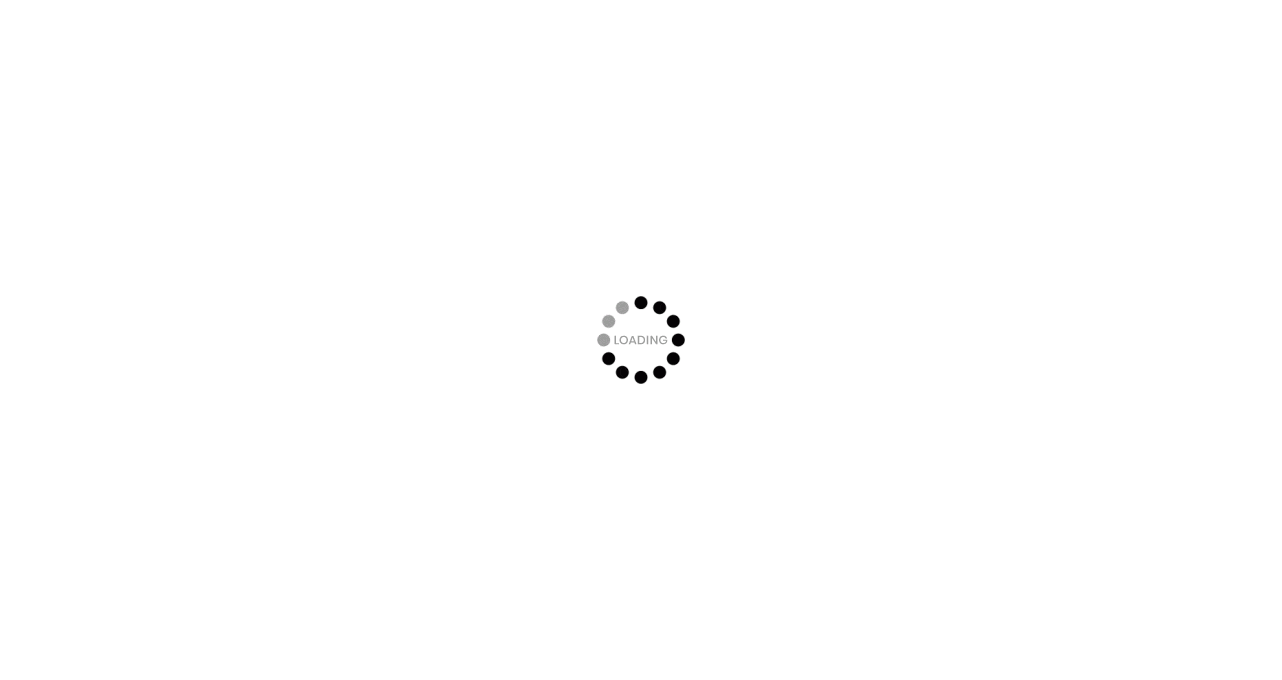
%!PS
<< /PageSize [1282 680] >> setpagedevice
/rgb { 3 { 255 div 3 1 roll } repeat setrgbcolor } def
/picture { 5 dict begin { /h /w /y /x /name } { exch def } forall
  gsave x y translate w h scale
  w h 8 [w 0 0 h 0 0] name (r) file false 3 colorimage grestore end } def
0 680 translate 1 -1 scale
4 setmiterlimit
255 255 255 rgb
0 0 1282 680 rectfill
(img_01.rgb) 597 296 88 88 picture
showpage
